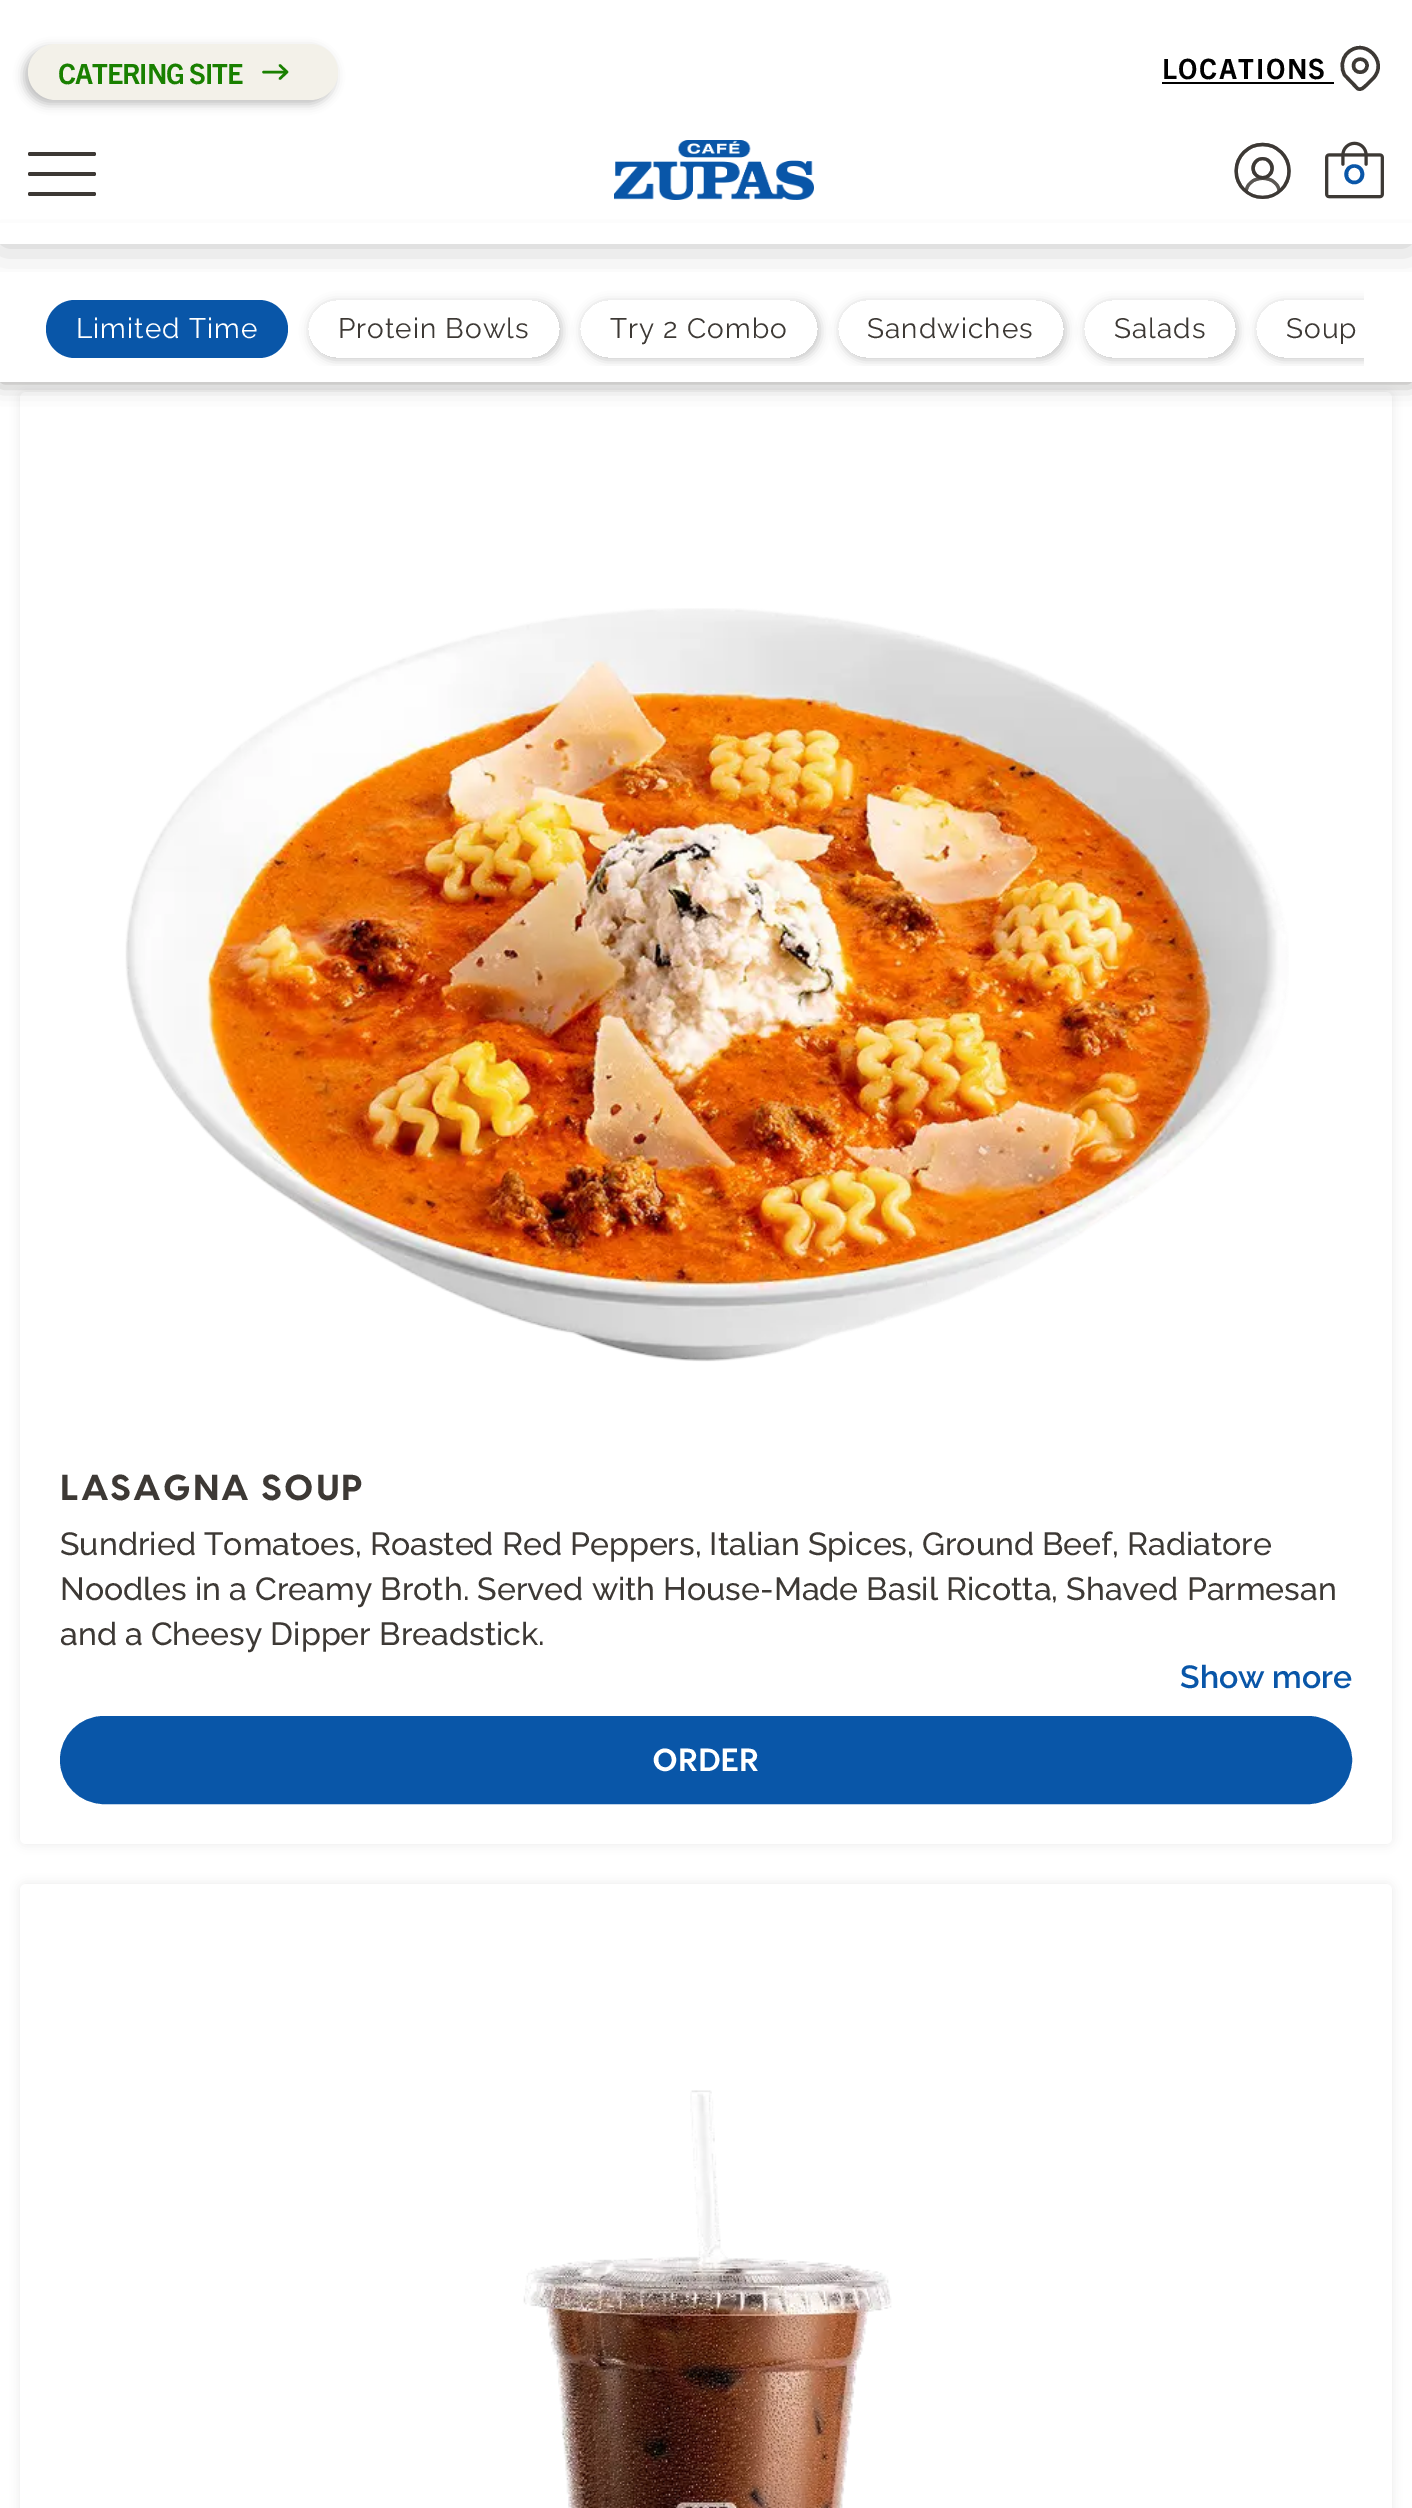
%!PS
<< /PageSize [1412 2508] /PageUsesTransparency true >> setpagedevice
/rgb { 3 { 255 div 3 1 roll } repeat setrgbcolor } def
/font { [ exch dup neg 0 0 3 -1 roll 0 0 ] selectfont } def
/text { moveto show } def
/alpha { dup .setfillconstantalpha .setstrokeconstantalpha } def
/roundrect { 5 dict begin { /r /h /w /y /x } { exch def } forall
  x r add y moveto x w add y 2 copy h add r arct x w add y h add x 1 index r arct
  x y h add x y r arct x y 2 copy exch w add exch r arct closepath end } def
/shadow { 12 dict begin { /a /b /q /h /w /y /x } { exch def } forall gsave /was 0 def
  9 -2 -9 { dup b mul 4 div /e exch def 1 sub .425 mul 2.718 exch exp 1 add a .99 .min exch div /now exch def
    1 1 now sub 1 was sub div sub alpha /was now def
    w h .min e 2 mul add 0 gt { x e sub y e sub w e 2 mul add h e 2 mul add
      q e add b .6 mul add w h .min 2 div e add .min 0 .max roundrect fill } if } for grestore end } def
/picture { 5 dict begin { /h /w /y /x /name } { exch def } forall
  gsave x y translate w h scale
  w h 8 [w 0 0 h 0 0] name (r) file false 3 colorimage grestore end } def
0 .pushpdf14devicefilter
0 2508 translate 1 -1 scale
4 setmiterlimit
255 255 255 rgb
0 0 1412 2508 rectfill
61 57 53 rgb
20 392 1372 1452 6 5 0.1 shadow
255 255 255 rgb
20 392 1372 1452 6 roundrect fill
61 57 53 rgb
0 244 1412 138 0 11 0.5 shadow
255 255 255 rgb
0 223 1412 159 rectfill
9 86 168 rgb
46 300 242 58 29 roundrect fill
gsave
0 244 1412 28 rectclip
0 0 0 rgb
0 0 1412 244 0 20 0.24 shadow
grestore
0 0 0 rgb
24 48 310 56 28 5 0.25 shadow
243 241 233 rgb
28 44 310 56 28 roundrect fill
25 128 0 rgb
2.5 setlinewidth
1 setlinecap
1 setlinejoin
263.5 72 moveto 23.5 0 rlineto 280 78.5 moveto 7 -6.5 rlineto 280 65.5 moveto 7 6.5 rlineto stroke
0 0 0 rgb
1162 82 172 2 rectfill
61 57 53 rgb
3.4 setlinewidth
1353.5 65.5 moveto 0 9 13.5 9 13.5 0 rcurveto 0 -8.5 -13.5 -8.5 -13.5 0 rcurveto closepath 1373 78.5 moveto -6.5 6.5 rlineto -2.5 2 -5.5 6 -9 3.5 rcurveto -12.5 -13 rlineto -4.5 -7 -3.5 -16.5 2 -22 rcurveto 16.5 -17.5 42.5 8 26 25 rcurveto closepath stroke
28 152 68 4 2 roundrect fill
28 172 68 4 2 roundrect fill
28 192 68 4 2 roundrect fill
(img_01.rgb) 614 140 200 60 picture
(img_02.rgb) 1234 142 57 57 picture
(img_03.rgb) 1325 141 59 58 picture
gsave
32 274 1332 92 rectclip
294 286 moveto 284 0 rlineto 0 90 rlineto -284 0 rlineto closepath 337 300 moveto 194 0 rlineto 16 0 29 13 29 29 rcurveto 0 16 -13 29 -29 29 rcurveto -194 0 rlineto -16 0 -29 -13 -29 -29 rcurveto 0 -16 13 -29 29 -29 rcurveto closepath eoclip newpath
191 191 191 rgb
310 302 252 58 29 5 0.87 shadow
grestore
gsave
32 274 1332 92 rectclip
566 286 moveto 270 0 rlineto 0 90 rlineto -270 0 rlineto closepath 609 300 moveto 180 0 rlineto 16 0 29 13 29 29 rcurveto 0 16 -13 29 -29 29 rcurveto -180 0 rlineto -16 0 -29 -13 -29 -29 rcurveto 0 -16 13 -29 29 -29 rcurveto closepath eoclip newpath
191 191 191 rgb
582 302 238 58 29 5 0.87 shadow
grestore
gsave
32 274 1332 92 rectclip
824 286 moveto 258 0 rlineto 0 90 rlineto -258 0 rlineto closepath 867 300 moveto 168 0 rlineto 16 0 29 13 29 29 rcurveto 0 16 -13 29 -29 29 rcurveto -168 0 rlineto -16 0 -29 -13 -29 -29 rcurveto 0 -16 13 -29 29 -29 rcurveto closepath eoclip newpath
191 191 191 rgb
840 302 226 58 29 5 0.87 shadow
grestore
gsave
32 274 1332 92 rectclip
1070 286 moveto 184 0 rlineto 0 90 rlineto -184 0 rlineto closepath 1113 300 moveto 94 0 rlineto 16 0 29 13 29 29 rcurveto 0 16 -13 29 -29 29 rcurveto -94 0 rlineto -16 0 -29 -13 -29 -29 rcurveto 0 -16 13 -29 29 -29 rcurveto closepath eoclip newpath
191 191 191 rgb
1086 302 152 58 29 5 0.87 shadow
grestore
gsave
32 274 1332 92 rectclip
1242 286 moveto 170 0 rlineto 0 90 rlineto -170 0 rlineto closepath 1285 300 moveto 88 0 rlineto 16 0 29 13 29 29 rcurveto 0 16 -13 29 -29 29 rcurveto -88 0 rlineto -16 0 -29 -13 -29 -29 rcurveto 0 -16 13 -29 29 -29 rcurveto closepath eoclip newpath
191 191 191 rgb
1258 302 146 58 29 5 0.87 shadow
grestore
(img_04.rgb) 125 608 1164 754 picture
9 86 168 rgb
61 1717 1290 86 43 roundrect gsave fill grestore
2 setlinewidth
0 setlinecap
0 setlinejoin
stroke
61 57 53 rgb
20 1884 1372 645 6 5 0.1 shadow
255 255 255 rgb
20 1884 1372 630 6 roundrect fill
(img_05.rgb) 523 2090 369 418 picture
/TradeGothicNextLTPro-Bold 28 font
25 128 0 rgb
58 84 moveto -1.1 0 (CATERING SITE) ashow
0 0 0 rgb
1162 79 moveto 1.5 0 (LOCATIONS) ashow
/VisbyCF-ExtraBold 28 font
9 86 168 rgb
(0) 1343 184 text
/Raleway-Regular 28 font
255 255 255 rgb
76 338 moveto 1 0 (Limited Time) ashow
61 57 53 rgb
338 338 moveto 1 0 (Protein Bowls) ashow
610 338 moveto 1 0 (Try 2 Combo) ashow
867 338 moveto 1 0 (Sandwiches) ashow
1114 338 moveto 1 0 (Salads) ashow
1286 338 moveto 1 0 (Soup) ashow
/VisbyCF-ExtraBold 36 font
60 1500 moveto 2 0 (LASAGNA SOUP) ashow
/Raleway-Medium 32 font
(Sundried Tomatoes, Roasted Red Peppers, Italian Spices, Ground Beef, Radiatore) 60 1555 text
(Noodles in a Creamy Broth. Served with House-Made Basil Ricotta, Shaved Parmesan) 60 1600 text
(and a Cheesy Dipper Breadstick.) 60 1645 text
/Raleway-SemiBold 32 font
9 86 168 rgb
(Show more) 1180 1688 text
/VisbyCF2-ExtraBold 32 font
255 255 255 rgb
(ORDER) 652 1771 text
.poppdf14devicefilter showpage
